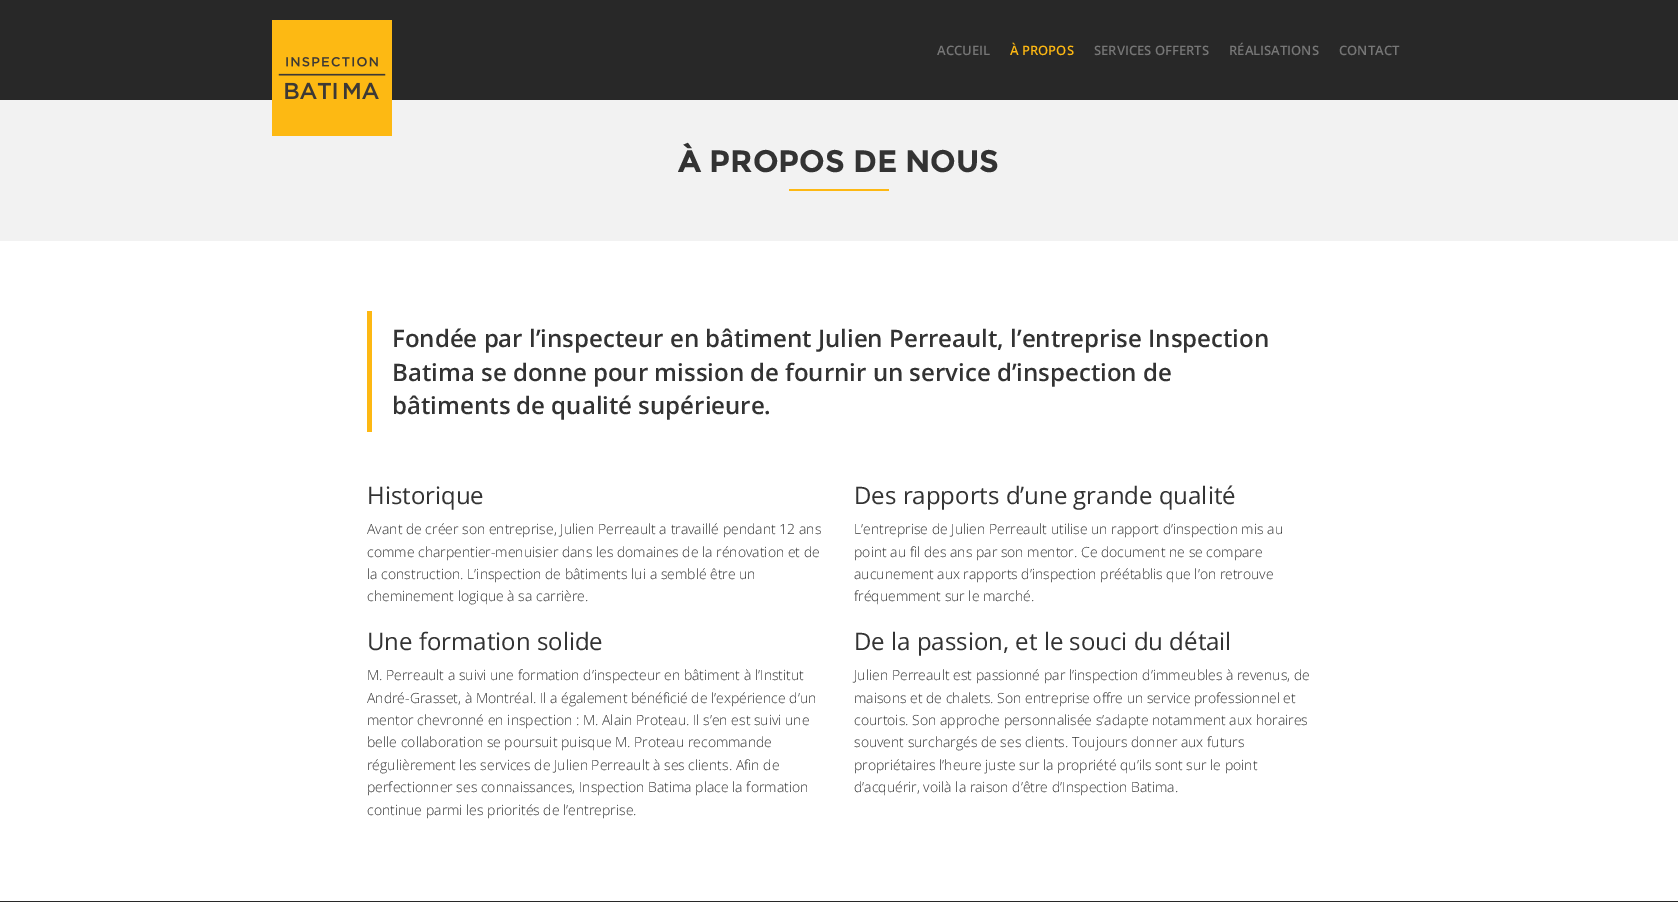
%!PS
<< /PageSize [1678 902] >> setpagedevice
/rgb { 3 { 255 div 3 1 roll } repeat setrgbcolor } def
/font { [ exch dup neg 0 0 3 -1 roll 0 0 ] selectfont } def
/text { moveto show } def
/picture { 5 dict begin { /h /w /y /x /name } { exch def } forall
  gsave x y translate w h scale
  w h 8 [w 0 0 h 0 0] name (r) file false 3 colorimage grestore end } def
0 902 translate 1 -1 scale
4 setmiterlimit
255 255 255 rgb
0 0 1678 902 rectfill
40 40 40 rgb
0 0 1678 100 rectfill
242 242 242 rgb
0 100 1678 141 rectfill
(img_01.rgb) 272 20 120 116 picture
253 184 19 rgb
789 189 100 2 rectfill
367 311 5 121 rectfill
40 40 40 rgb
0 901 1678 1 rectfill
/OpenSans-SemiBold 13 font
119 119 119 rgb
(ACCUEIL) 937 55 text
253 184 19 rgb
(À PROPOS) 1010 55 text
119 119 119 rgb
(SERVICES OFFERTS) 1094 55 text
(RÉALISATIONS) 1229 55 text
(CONTACT) 1339 55 text
/Montserrat-Bold 31 font
51 51 51 rgb
(À PROPOS DE NOUS) 678 172 text
/OpenSans-SemiBold 24 font
(Fondée par l’inspecteur en bâtiment Julien Perreault, l’entreprise Inspection) 392 347 text
(Batima se donne pour mission de fournir un service d’inspection de) 392 381 text
(bâtiments de qualité supérieure.) 392 414 text
/OpenSans-Regular 24 font
(Historique) 367 504 text
/OpenSans-Light 14 font
(Avant de créer son entreprise, Julien Perreault a travaillé pendant 12 ans) 367 534 text
(comme charpentier-menuisier dans les domaines de la rénovation et de) 367 557 text
(la construction. L’inspection de bâtiments lui a semblé être un) 367 579 text
(cheminement logique à sa carrière.) 367 601 text
/OpenSans-Regular 24 font
(Une formation solide) 367 650 text
/OpenSans-Light 14 font
(M. Perreault a suivi une formation d’inspecteur en bâtiment à l’Institut) 367 680 text
(André-Grasset, à Montréal. Il a également bénéficié de l’expérience d’un) 367 703 text
(mentor chevronné en inspection : M. Alain Proteau. Il s’en est suivi une) 367 725 text
(belle collaboration se poursuit puisque M. Proteau recommande) 367 747 text
(régulièrement les services de Julien Perreault à ses clients. Afin de) 367 770 text
(perfectionner ses connaissances, Inspection Batima place la formation) 367 792 text
(continue parmi les priorités de l’entreprise.) 367 815 text
/OpenSans-Regular 24 font
(Des rapports d’une grande qualité) 854 504 text
/OpenSans-Light 14 font
(L’entreprise de Julien Perreault utilise un rapport d’inspection mis au) 854 534 text
(point au fil des ans par son mentor. Ce document ne se compare) 854 557 text
(aucunement aux rapports d’inspection préétablis que l’on retrouve) 854 579 text
(fréquemment sur le marché.) 854 601 text
/OpenSans-Regular 24 font
(De la passion, et le souci du détail) 854 650 text
/OpenSans-Light 14 font
(Julien Perreault est passionné par l’inspection d’immeubles à revenus, de) 854 680 text
(maisons et de chalets. Son entreprise offre un service professionnel et) 854 703 text
(courtois. Son approche personnalisée s’adapte notamment aux horaires) 854 725 text
(souvent surchargés de ses clients. Toujours donner aux futurs) 854 747 text
(propriétaires l’heure juste sur la propriété qu’ils sont sur le point) 854 770 text
(d’acquérir, voilà la raison d’être d’Inspection Batima.) 854 792 text
showpage
